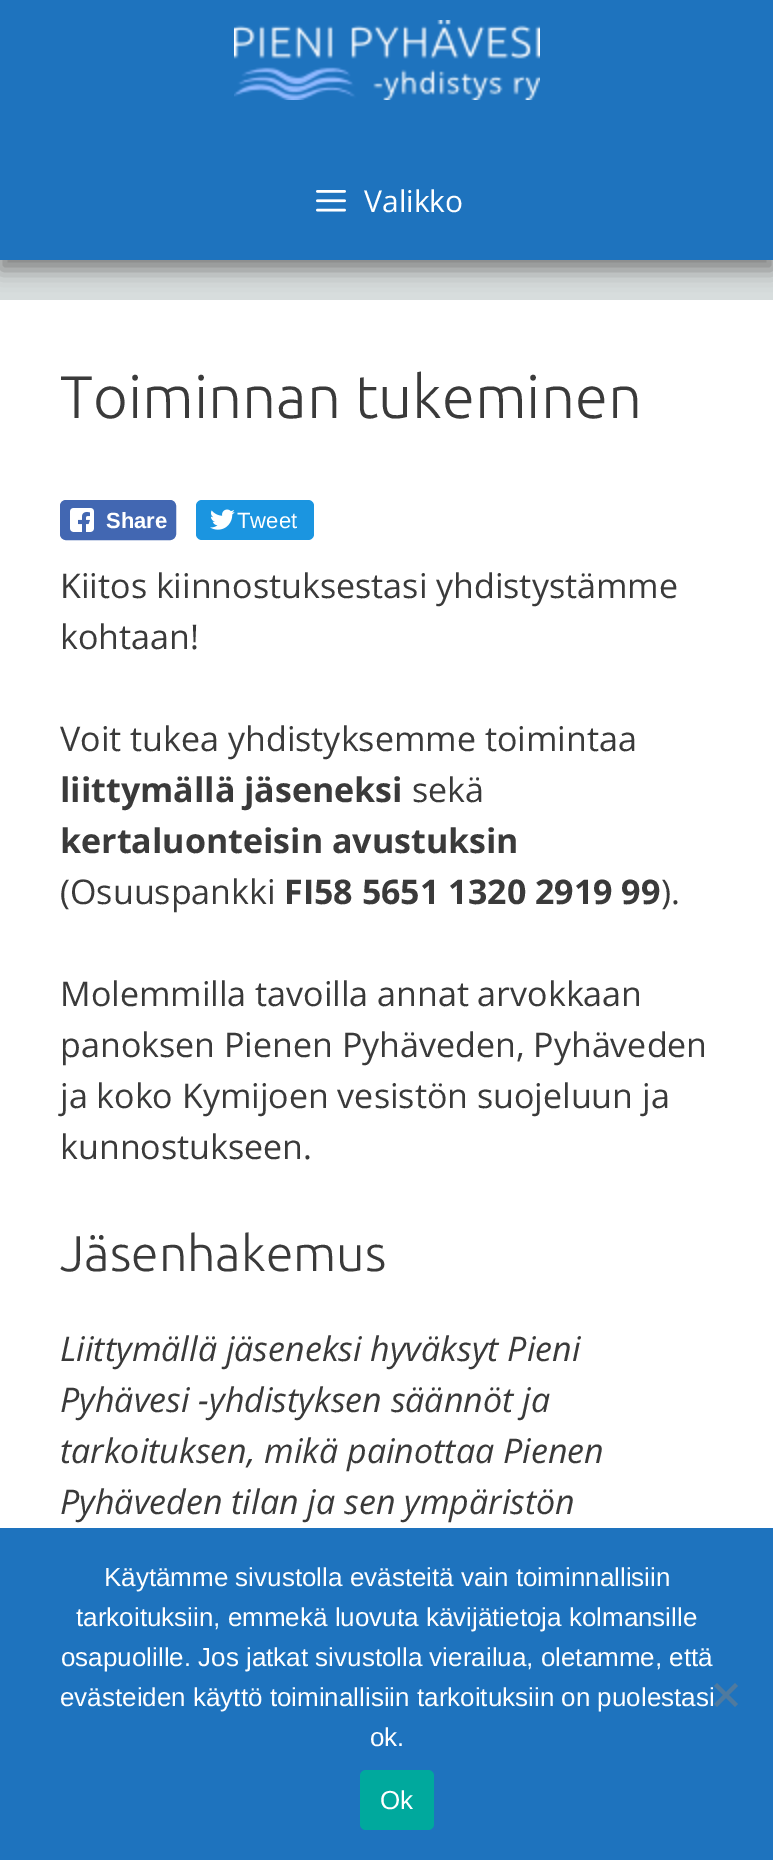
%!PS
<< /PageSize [773 1860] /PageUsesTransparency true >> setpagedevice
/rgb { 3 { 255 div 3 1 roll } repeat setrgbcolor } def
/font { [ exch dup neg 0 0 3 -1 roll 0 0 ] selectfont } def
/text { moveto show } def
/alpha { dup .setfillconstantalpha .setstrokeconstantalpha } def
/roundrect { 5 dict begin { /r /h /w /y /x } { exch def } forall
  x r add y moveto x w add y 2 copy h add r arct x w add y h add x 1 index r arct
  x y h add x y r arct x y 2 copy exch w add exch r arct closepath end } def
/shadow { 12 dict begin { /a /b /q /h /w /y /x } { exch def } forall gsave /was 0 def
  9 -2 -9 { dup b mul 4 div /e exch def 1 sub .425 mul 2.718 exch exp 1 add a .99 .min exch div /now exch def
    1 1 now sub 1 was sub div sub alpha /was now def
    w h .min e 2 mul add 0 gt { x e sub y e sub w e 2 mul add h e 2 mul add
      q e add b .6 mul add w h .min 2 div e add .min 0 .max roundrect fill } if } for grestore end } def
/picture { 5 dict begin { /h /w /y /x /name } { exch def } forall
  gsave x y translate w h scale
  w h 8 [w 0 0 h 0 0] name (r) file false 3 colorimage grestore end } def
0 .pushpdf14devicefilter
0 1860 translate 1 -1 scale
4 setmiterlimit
215 221 221 rgb
0 0 773 1860 rectfill
255 255 255 rgb
0 300 773 1228 rectfill
128 128 128 rgb
0 10 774 260 0 10 1 shadow
30 115 190 rgb
0 0 773 260 rectfill
(img_01.rgb) 234 20 306 80 picture
(img_02.rgb) 316 190 30 22 picture
66 103 178 rgb
61 501 114 38 5 roundrect gsave fill grestore
2 setlinewidth
stroke
(img_03.rgb) 70 508 24 24 picture
27 149 224 rgb
196 500 118 40 6 roundrect fill
(img_04.rgb) 210 509 25 21 picture
30 115 190 rgb
0 1528 773 332 rectfill
79 122 159 rgb
735 1683 moveto 3 3 rlineto -21 21 rlineto -3 -3 rlineto closepath fill
714 1686 moveto 3 -3 rlineto 21 21 rlineto -3 3 rlineto closepath fill
0 169 157 rgb
360 1770 74 60 6 roundrect fill
/OpenSans-Regular 30 font
255 255 255 rgb
(Valikko) 364 212 text
/Ubuntu-Light 60 font
58 58 58 rgb
(Toiminnan tukeminen) 60 418 text
/LiberationSans-Bold 22 font
255 255 255 rgb
(Share) 106 528 text
/LiberationSans-Regular 22 font
(Tweet) 237 528 text
/OpenSans-Regular 34 font
58 58 58 rgb
(Kiitos kiinnostuksestasi yhdistystämme) 60 598 text
(kohtaan!) 60 649 text
(Voit tukea yhdistyksemme toimintaa) 60 751 text
/OpenSans-Bold 34 font
(liittymällä jäseneksi) 60 802 text
/OpenSans-Regular 34 font
(sekä) 412 802 text
/OpenSans-Bold 34 font
(kertaluonteisin avustuksin) 60 853 text
/OpenSans-Regular 34 font
(\(Osuuspankki) 60 904 text
/OpenSans-Bold 34 font
(FI58 5651 1320 2919 99) 284 904 text
/OpenSans-Regular 34 font
(\).) 661 904 text
(Molemmilla tavoilla annat arvokkaan) 60 1006 text
(panoksen Pienen Pyhäveden, Pyhäveden) 60 1057 text
(ja koko Kymijoen vesistön suojeluun ja) 60 1108 text
(kunnostukseen.) 60 1159 text
/Ubuntu-Light 50 font
(Jäsenhakemus) 60 1271 text
/OpenSans-Italic 34 font
(Liittymällä jäseneksi hyväksyt Pieni) 60 1361 text
(Pyhävesi -yhdistyksen säännöt ja) 60 1412 text
(tarkoituksen, mikä painottaa Pienen) 60 1463 text
(Pyhäveden tilan ja sen ympäristön) 60 1514 text
/LiberationSans-Regular 26 font
255 255 255 rgb
(Käytämme sivustolla evästeitä vain toiminnallisiin) 104 1586 text
(tarkoituksiin, emmekä luovuta kävijätietoja kolmansille) 76 1626 text
(osapuolille. Jos jatkat sivustolla vierailua, oletamme, että) 61 1666 text
(evästeiden käyttö toiminallisiin tarkoituksiin on puolestasi) 60 1706 text
(ok.) 370 1746 text
(Ok) 380 1809 text
.poppdf14devicefilter showpage
